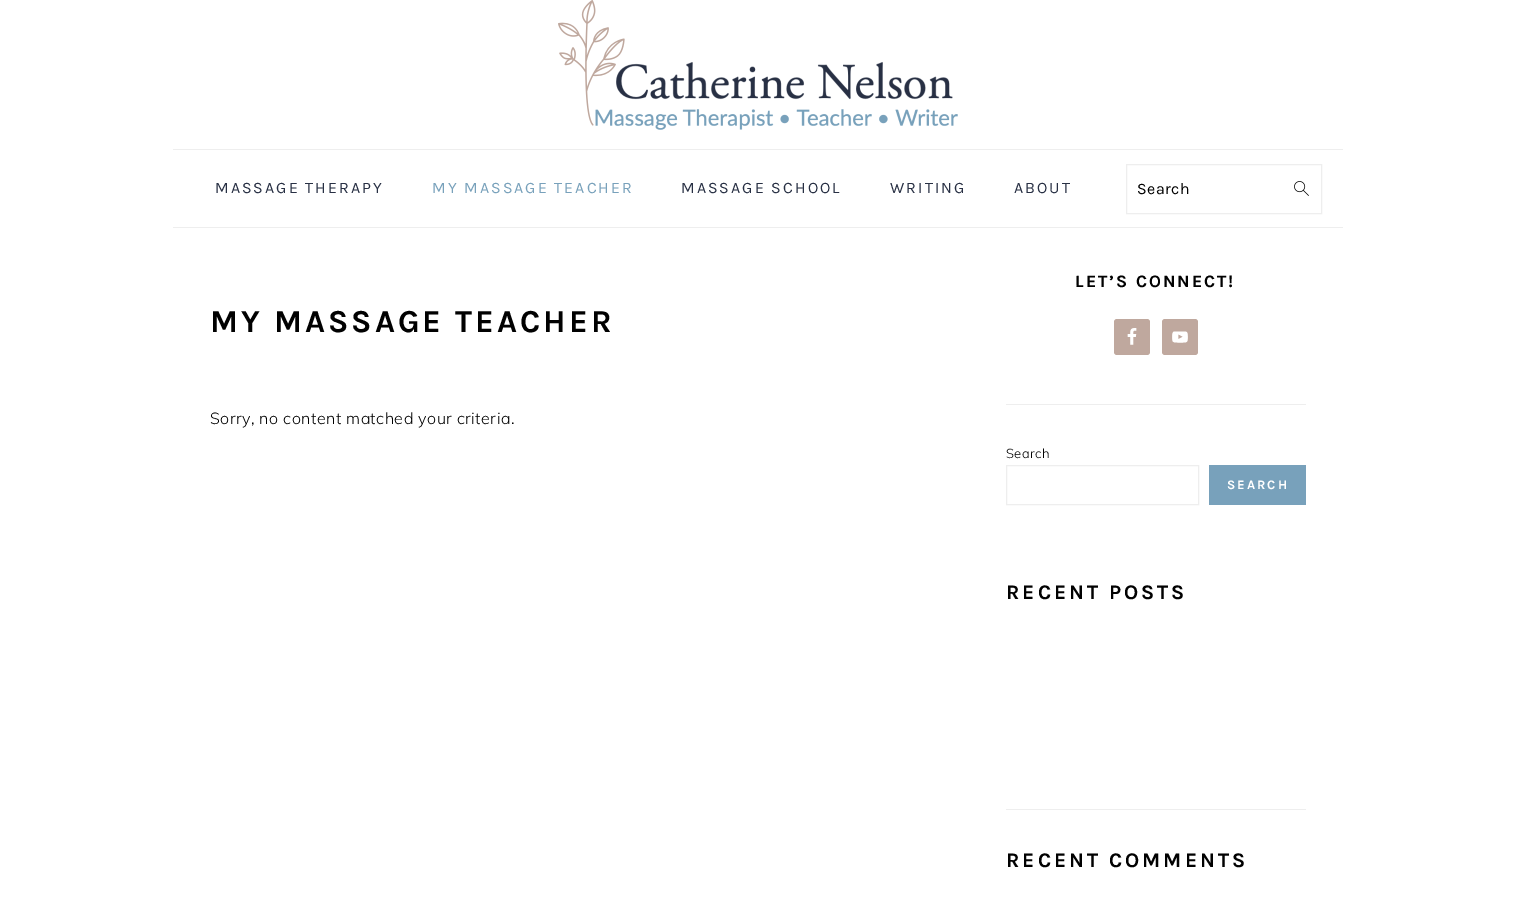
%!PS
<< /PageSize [1516 908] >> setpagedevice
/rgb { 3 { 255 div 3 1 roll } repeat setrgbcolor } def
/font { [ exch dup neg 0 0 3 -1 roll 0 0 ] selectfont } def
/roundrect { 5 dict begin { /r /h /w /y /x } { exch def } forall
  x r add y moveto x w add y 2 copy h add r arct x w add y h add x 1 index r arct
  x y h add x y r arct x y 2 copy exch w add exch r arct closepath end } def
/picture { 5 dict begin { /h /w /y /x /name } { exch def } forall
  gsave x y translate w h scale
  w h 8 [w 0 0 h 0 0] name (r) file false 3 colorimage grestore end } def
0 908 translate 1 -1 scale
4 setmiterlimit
255 255 255 rgb
0 0 1516 908 rectfill
(img_01.rgb) 558 0 400 130 picture
238 238 238 rgb
173 149 1170 1 rectfill
173 227 1170 1 rectfill
1126.5 164.5 195 49 rectstroke
(img_02.rgb) 1294 181 15 15 picture
1006 404 300 1 rectfill
191 168 158 rgb
1114 319 36 36 3 roundrect fill
(img_03.rgb) 1127 328 10 17 picture
1162 319 36 36 3 roundrect fill
(img_04.rgb) 1172 331 16 12 picture
238 238 238 rgb
1006.5 465.5 192 39 rectstroke
120 161 187 rgb
1209 465 97 40 rectfill
238 238 238 rgb
1006 809 300 1 rectfill
/Karla-Regular 16 font
40 48 68 rgb
215 193 moveto 2 0 (MASSAGE THERAPY) ashow
120 161 187 rgb
432 193 moveto 2 0 (MY MASSAGE TEACHER) ashow
40 48 68 rgb
681 193 moveto 2 0 (MASSAGE SCHOOL) ashow
890 193 moveto 2 0 (WRITING) ashow
1014 193 moveto 2 0 (ABOUT) ashow
1 1 1 rgb
1137 194 moveto 0.5 0 (Search) ashow
/Karla-Bold 32 font
210 332 moveto 3 0 (MY MASSAGE TEACHER) ashow
/Muli-Light 16 font
210 424 moveto 0.5 0 (Sorry, no content matched your criteria.) ashow
/Karla-Bold 17.5 font
1075 287 moveto 2 0 (LET’S CONNECT!) ashow
/Muli-Light 13 font
1006 458 moveto 0.5 0 (Search) ashow
/Karla-Bold 13 font
255 255 255 rgb
1227 489 moveto 2 0 (SEARCH) ashow
/Karla-Bold 20.75 font
1 1 1 rgb
1006 599 moveto 3 0 (RECENT POSTS) ashow
1006 867 moveto 3 0 (RECENT COMMENTS) ashow
showpage
